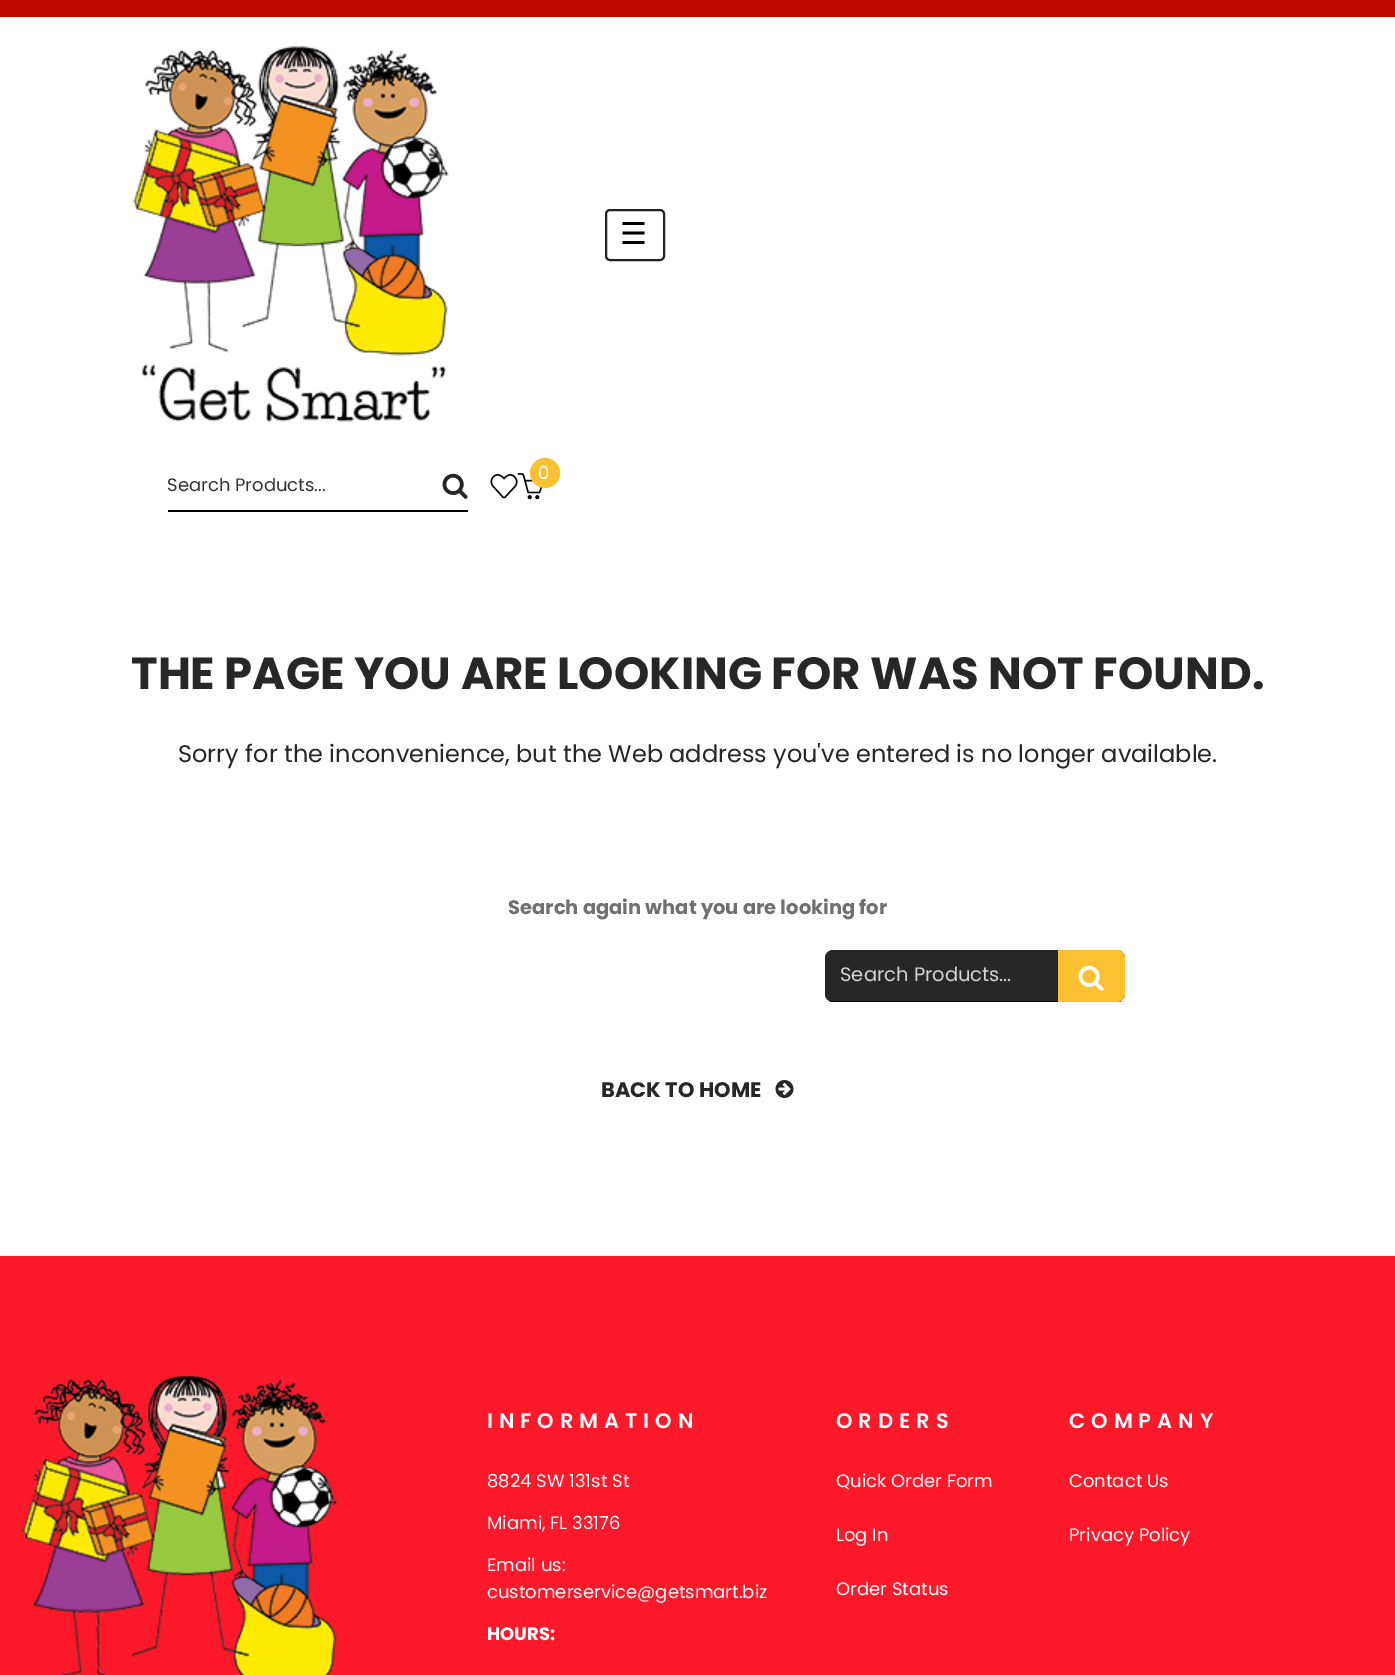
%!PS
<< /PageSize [1395 1675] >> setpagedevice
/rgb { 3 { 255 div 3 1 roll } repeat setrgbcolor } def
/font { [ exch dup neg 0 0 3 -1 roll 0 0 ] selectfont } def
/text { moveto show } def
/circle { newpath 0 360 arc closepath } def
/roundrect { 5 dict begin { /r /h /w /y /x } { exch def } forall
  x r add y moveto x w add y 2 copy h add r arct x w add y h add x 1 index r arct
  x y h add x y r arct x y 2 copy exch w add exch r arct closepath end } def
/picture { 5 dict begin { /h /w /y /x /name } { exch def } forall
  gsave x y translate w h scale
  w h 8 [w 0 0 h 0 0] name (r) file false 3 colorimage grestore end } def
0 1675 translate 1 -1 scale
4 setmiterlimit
255 255 255 rgb
0 0 1395 1675 rectfill
194 11 0 rgb
0 0 1395 17 rectfill
(img_01.rgb) 133 46 316 376 picture
34 34 34 rgb
2 setlinewidth
606 210 58 50 4 roundrect stroke
(img_04.rgb) 490 474 28 25 picture
(img_02.rgb) 517 473 26 27 picture
252 192 48 rgb
545 473 15 circle fill
0 0 0 rgb
168 510 300 2 rectfill
(img_03.rgb) 442 473 26 26 picture
39 39 39 rgb
825 950 300 52 8 roundrect fill
gsave
285 950 840 52 8 roundrect clip newpath
0 0 0 rgb
830 1001 292 1 rectfill
grestore
252 192 48 rgb
1058 950 moveto 59 0 rlineto 4.5 0 8 3.5 8 8 rcurveto 0 36 rlineto 0 4.5 -3.5 8 -8 8 rcurveto -59 0 rlineto closepath fill
(img_05.rgb) 1078 965 26 26 picture
(img_06.rgb) 775 1080 19 18 picture
253 24 42 rgb
0 1256 1395 419 rectfill
(img_07.rgb) 22 1376 315 299 picture
/DejaVuSans-Regular 30 font
0 0 0 rgb
(☰) 620 244 text
/Poppins-Regular 18 font
255 255 255 rgb
(0) 538 479 text
51 51 51 rgb
(Search Products...) 167 491 text
/Poppins-Bold 45 font
39 39 39 rgb
(THE PAGE YOU ARE LOOKING FOR WAS NOT FOUND.) 131 689 text
/Poppins-Regular 24 font
(Sorry for the inconvenience, but the Web address you've entered is no longer available.) 178 762 text
/Poppins-Bold 19.5 font
112 112 112 rgb
(Search again what you are looking for) 508 914 text
/Poppins-Regular 19.5 font
212 212 212 rgb
(Search Products...) 840 981 text
/Poppins-Bold 21 font
39 39 39 rgb
(BACK TO HOME) 601 1097 text
/Poppins-SemiBold 21 font
255 255 255 rgb
487 1428 moveto 6 0 (INFORMATION) ashow
/Poppins-Regular 18 font
(8824 SW 131st St) 487 1487 text
(Miami, FL 33176) 487 1529 text
(Email us:) 487 1571 text
(customerservice@getsmart.biz) 487 1598 text
/Poppins-Bold 18 font
(HOURS:) 487 1640 text
/Poppins-SemiBold 21 font
836 1428 moveto 6 0 (ORDERS) ashow
/Poppins-Regular 18 font
(Quick Order Form) 836 1487 text
(Log In) 836 1541 text
(Order Status) 836 1595 text
/Poppins-SemiBold 21 font
1069 1428 moveto 6 0 (COMPANY) ashow
/Poppins-Regular 18 font
(Contact Us) 1069 1487 text
(Privacy Policy) 1069 1541 text
showpage
